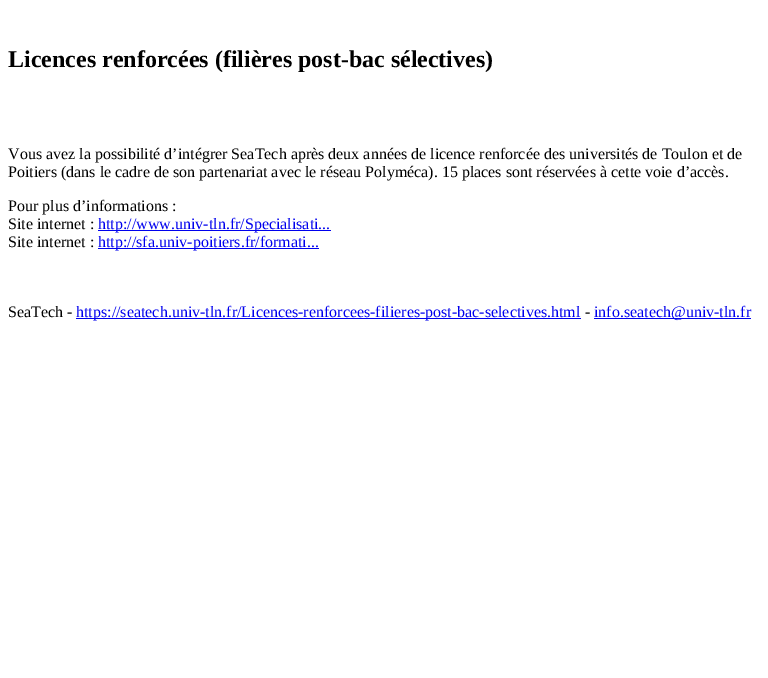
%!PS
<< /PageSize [768 678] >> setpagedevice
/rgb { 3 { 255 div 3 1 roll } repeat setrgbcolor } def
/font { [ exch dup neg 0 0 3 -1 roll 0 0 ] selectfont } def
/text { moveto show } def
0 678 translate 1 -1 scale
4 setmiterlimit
255 255 255 rgb
0 0 768 678 rectfill
0 0 238 rgb
98 230 233 1 rectfill
98 248 221 1 rectfill
76 318 505 1 rectfill
594 318 157 1 rectfill
/LiberationSerif-Bold 24 font
0 0 0 rgb
(Licences renforcées \(filières post-bac sélectives\)) 8 67 text
/LiberationSerif-Regular 16 font
(Vous avez la possibilité d’intégrer SeaTech après deux années de licence renforcée des universités de Toulon et de) 8 159 text
(Poitiers \(dans le cadre de son partenariat avec le réseau Polyméca\). 15 places sont réservées à cette voie d’accès.) 8 177 text
(Pour plus d’informations :) 8 211 text
(Site internet :) 8 229 text
0 0 238 rgb
(http://www.univ-tln.fr/Specialisati...) 98 229 text
0 0 0 rgb
(Site internet :) 8 247 text
0 0 238 rgb
(http://sfa.univ-poitiers.fr/formati...) 98 247 text
0 0 0 rgb
(SeaTech -) 8 317 text
0 0 238 rgb
(https://seatech.univ-tln.fr/Licences-renforcees-filieres-post-bac-selectives.html) 76 317 text
0 0 0 rgb
(-) 585 317 text
0 0 238 rgb
(info.seatech@univ-tln.fr) 594 317 text
showpage
